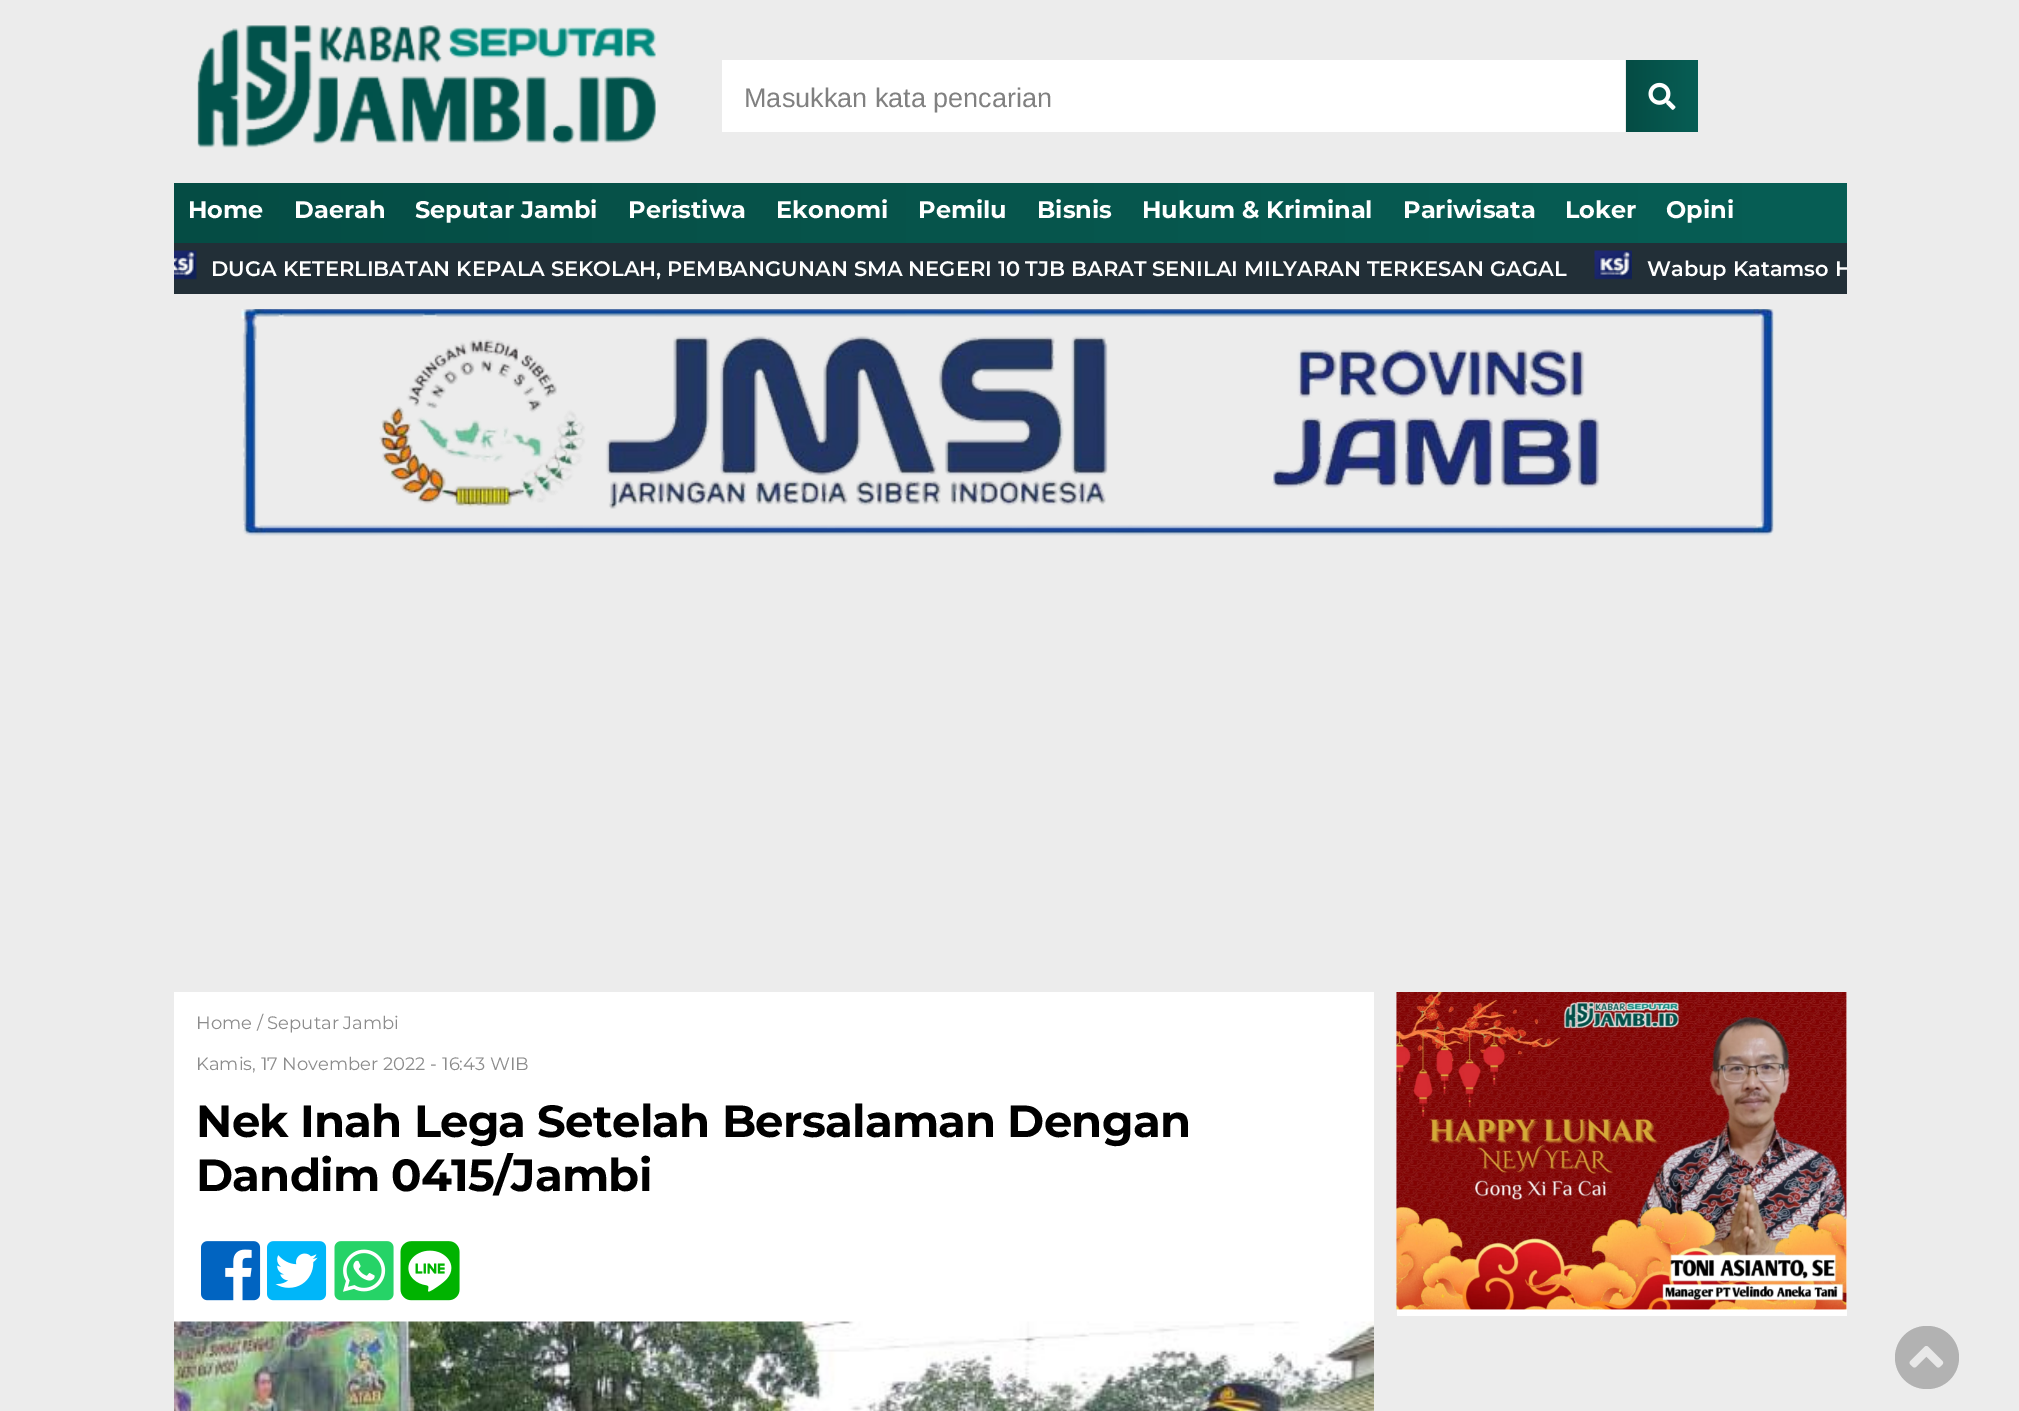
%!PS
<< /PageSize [2019 1411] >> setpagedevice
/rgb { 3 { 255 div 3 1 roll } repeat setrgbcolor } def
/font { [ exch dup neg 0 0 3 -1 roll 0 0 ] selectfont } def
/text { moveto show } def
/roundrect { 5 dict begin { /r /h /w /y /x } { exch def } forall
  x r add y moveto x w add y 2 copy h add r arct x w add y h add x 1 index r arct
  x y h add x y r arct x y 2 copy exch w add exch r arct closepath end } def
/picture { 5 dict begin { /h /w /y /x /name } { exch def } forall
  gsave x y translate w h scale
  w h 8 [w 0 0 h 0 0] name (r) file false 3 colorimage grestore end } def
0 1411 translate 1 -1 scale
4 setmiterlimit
236 236 236 rgb
0 0 2019 1411 rectfill
(img_01.rgb) 197 25 459 123 picture
255 255 255 rgb
722 60 903 72 rectfill
gsave 1626 60 moveto 72 0 rlineto 0 72 rlineto -72 0 rlineto closepath clip newpath
<< /ShadingType 2 /ColorSpace /DeviceRGB /Coords [1626 96 1698 96] /Extend [true true] /Function << /FunctionType 2 /Domain [0 1] /C0 [0.02 0.298 0.267] /C1 [0.027 0.369 0.333] /N 1 >> >> shfill grestore
(img_02.rgb) 1648 82 28 28 picture
gsave 174 183 moveto 1673 0 rlineto 0 60 rlineto -1673 0 rlineto closepath clip newpath
<< /ShadingType 2 /ColorSpace /DeviceRGB /Coords [174 213 1847 213] /Extend [true true] /Function << /FunctionType 2 /Domain [0 1] /C0 [0.02 0.298 0.267] /C1 [0.027 0.369 0.333] /N 1 >> >> shfill grestore
34 47 55 rgb
174 243 1673 51 rectfill
(img_03.rgb) 174 250 23 30 picture
(img_04.rgb) 1594 250 38 30 picture
(img_05.rgb) 241 309 1533 227 picture
255 255 255 rgb
174 992 1200 330 rectfill
(img_06.rgb) 201 1241 60 60 picture
(img_07.rgb) 267 1241 60 60 picture
(img_08.rgb) 334 1241 60 60 picture
(img_09.rgb) 400 1241 60 60 picture
(img_10.rgb) 174 1321 1200 90 picture
1397 992 450 324 rectfill
(img_11.rgb) 1396 992 451 318 picture
178 178 178 rgb
1895 1326 64 63 31.5 roundrect fill
(img_12.rgb) 1909 1346 35 22 picture
/LiberationSans-Regular 27 font
128 128 128 rgb
(Masukkan kata pencarian) 744 107 text
/Montserrat-Bold 24 font
255 255 255 rgb
(Home) 188 218 text
(Daerah) 294 218 text
(Seputar Jambi) 415 218 text
(Peristiwa) 628 218 text
(Ekonomi) 776 218 text
(Pemilu) 918 218 text
(Bisnis) 1037 218 text
(Hukum & Kriminal) 1142 218 text
(Pariwisata) 1403 218 text
(Loker) 1565 218 text
(Opini) 1666 218 text
/Montserrat-SemiBold 21 font
(DUGA KETERLIBATAN KEPALA SEKOLAH, PEMBANGUNAN SMA NEGERI 10 TJB BARAT SENILAI MILYARAN TERKESAN GAGAL) 211 276 text
gsave
174 243 1673 51 rectclip
(Wabup Katamso H) 1647 276 text
grestore
/Montserrat-Regular 18 font
140 140 140 rgb
(Home / Seputar Jambi) 196 1029 text
(Kamis, 17 November 2022 - 16:43 WIB) 196 1070 text
/Montserrat-Bold 45 font
0 0 0 rgb
196 1137 moveto -0.75 0 (Nek Inah Lega Setelah Bersalaman Dengan) ashow
196 1191 moveto -0.75 0 (Dandim 0415/Jambi) ashow
showpage
